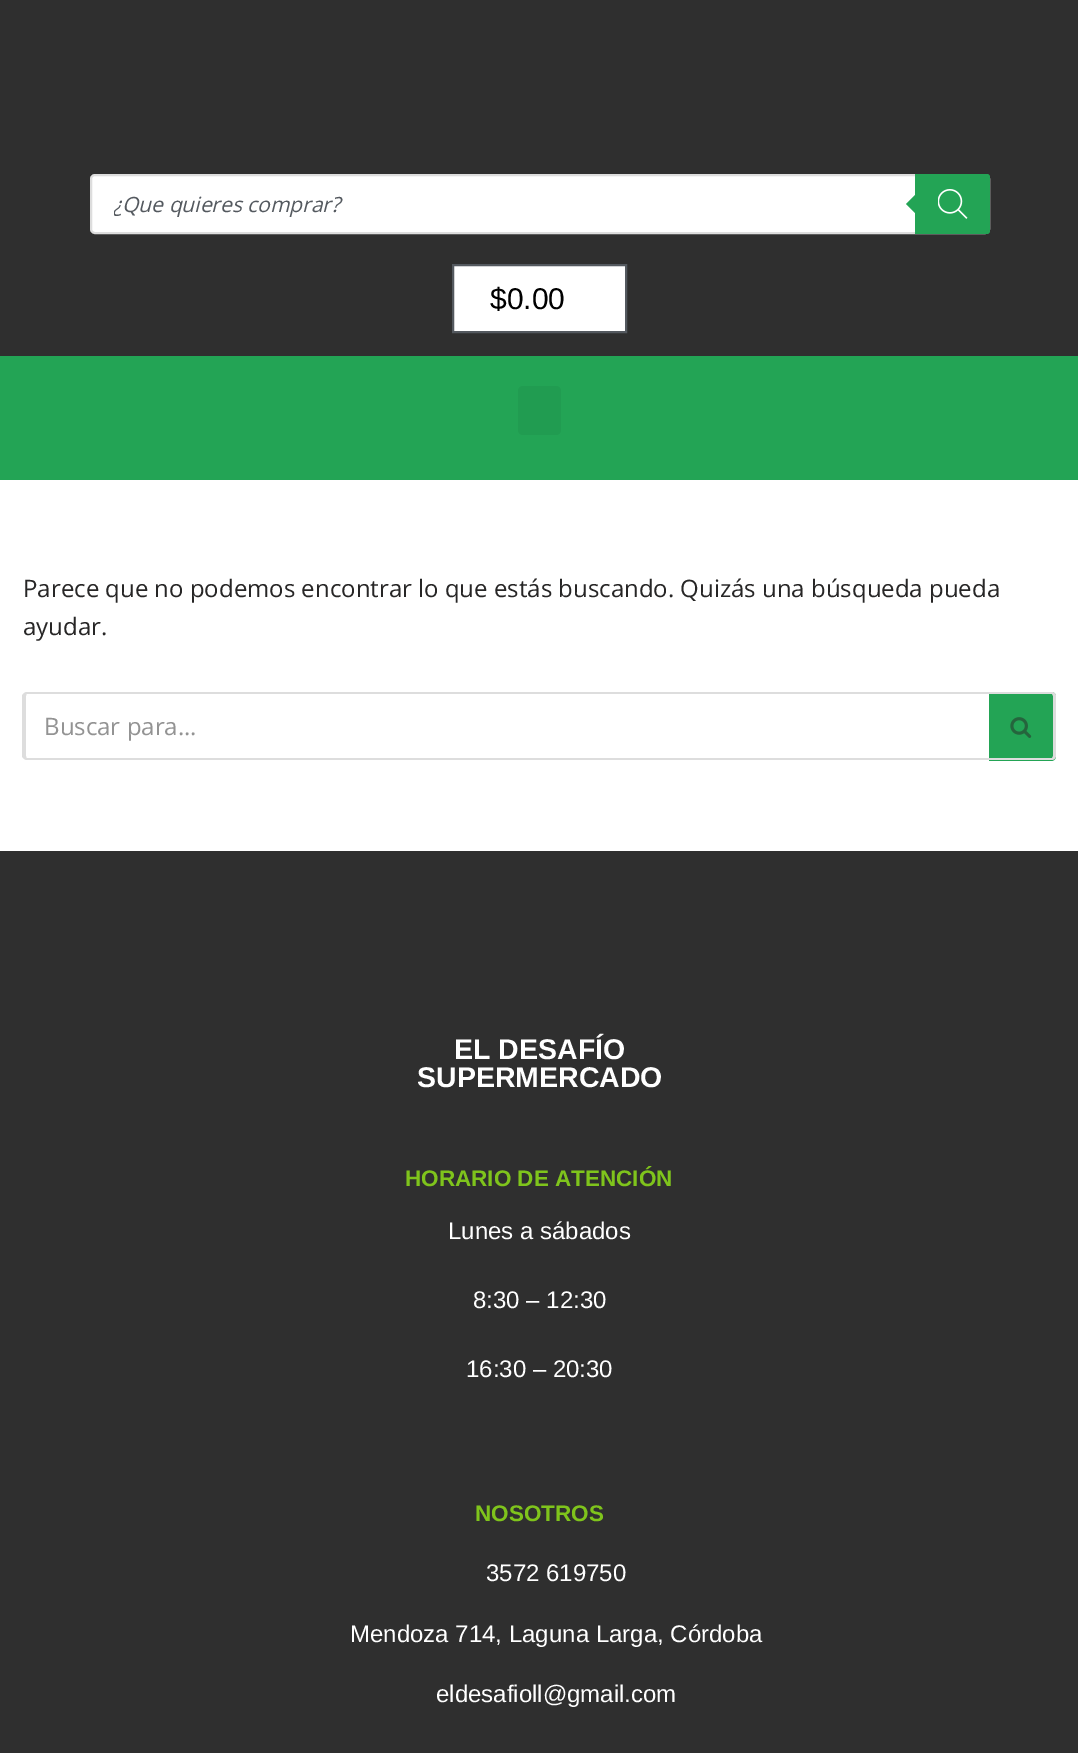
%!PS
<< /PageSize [1078 1753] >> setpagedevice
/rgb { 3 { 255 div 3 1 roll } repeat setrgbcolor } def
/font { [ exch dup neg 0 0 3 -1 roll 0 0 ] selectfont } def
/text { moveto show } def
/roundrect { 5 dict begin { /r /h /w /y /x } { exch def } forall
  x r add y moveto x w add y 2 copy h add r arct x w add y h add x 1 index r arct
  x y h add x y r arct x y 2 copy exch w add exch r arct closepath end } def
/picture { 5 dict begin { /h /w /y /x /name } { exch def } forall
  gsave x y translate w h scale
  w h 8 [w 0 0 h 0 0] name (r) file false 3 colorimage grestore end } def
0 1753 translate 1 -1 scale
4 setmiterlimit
255 255 255 rgb
0 0 1078 1753 rectfill
47 47 47 rgb
0 0 1078 356 rectfill
255 255 255 rgb
91 175 898 58 4 roundrect gsave fill grestore
221 221 221 rgb
2 setlinewidth
stroke
35 164 85 rgb
915 174 moveto 72 0 rlineto 1.5 0 3 1.5 3 3 rcurveto 0 54 rlineto 0 1.5 -1.5 3 -3 3 rcurveto -72 0 rlineto closepath fill
918 192 moveto 0 24 rlineto -12 -12 rlineto closepath fill
(img_01.rgb) 938 189 30 30 picture
255 255 255 rgb
453 265 moveto 173 0 rlineto 0 67 rlineto -173 0 rlineto closepath gsave fill grestore
84 89 95 rgb
stroke
35 164 85 rgb
0 356 1078 124 rectfill
33 156 81 rgb
518 386 43 49 5 roundrect fill
221 221 221 rgb
27 692 moveto 961 0 rlineto 0 68 rlineto -961 0 rlineto -2 0 -5 -2 -5 -4 rcurveto 0 -60 rlineto 0 -2 3 -4 5 -4 rcurveto closepath 27 694 moveto 961 0 rlineto 0 64 rlineto -961 0 rlineto -1 0 -1 -1 -1 -2 rcurveto 0 -60 rlineto 0 -1 0 -2 1 -2 rcurveto closepath eofill
35 164 85 rgb
989 692 moveto 62 0 rlineto 3 0 5 2 5 5 rcurveto 0 59 rlineto 0 3 -2 5 -5 5 rcurveto -62 0 rlineto closepath fill
221 221 221 rgb
988 692 moveto 64 0 rlineto 2 0 4 2 4 4 rcurveto 0 60 rlineto 0 2 -2 4 -4 4 rcurveto -64 0 rlineto closepath 988 694 moveto 64 0 rlineto 0 0 1 1 1 2 rcurveto 0 60 rlineto 0 1 -1 2 -1 2 rcurveto -64 0 rlineto closepath eofill
(img_02.rgb) 1010 717 22 21 picture
47 47 47 rgb
0 851 1078 902 rectfill
gsave
114 191 852 28 rectclip
/OpenSans-Italic 21 font
84 89 95 rgb
(¿Que quieres comprar?) 113 212 text
grestore
/LiberationSans-Regular 30 font
0 0 0 rgb
($0.00) 490 309 text
/OpenSans-Regular 24 font
39 38 38 rgb
(Parece que no podemos encontrar lo que estás buscando. Quizás una búsqueda pueda) 23 597 text
(ayudar.) 23 635 text
147 147 147 rgb
(Buscar para...) 44 735 text
/LiberationSans-Bold 28.5 font
255 255 255 rgb
(EL DESAFÍO) 454 1059 text
(SUPERMERCADO) 417 1087 text
/LiberationSans-Bold 22.5 font
127 196 28 rgb
(HORARIO DE ATENCIÓN) 405 1186 text
/LiberationSans-Regular 24 font
255 255 255 rgb
(Lunes a sábados) 448 1239 text
(8:30 – 12:30) 473 1308 text
(16:30 – 20:30) 466 1377 text
/LiberationSans-Bold 22.5 font
127 196 28 rgb
(NOSOTROS) 475 1521 text
/LiberationSans-Regular 24 font
255 255 255 rgb
(3572 619750) 486 1581 text
(Mendoza 714, Laguna Larga, Córdoba) 350 1642 text
(eldesafioll@gmail.com) 436 1702 text
showpage
